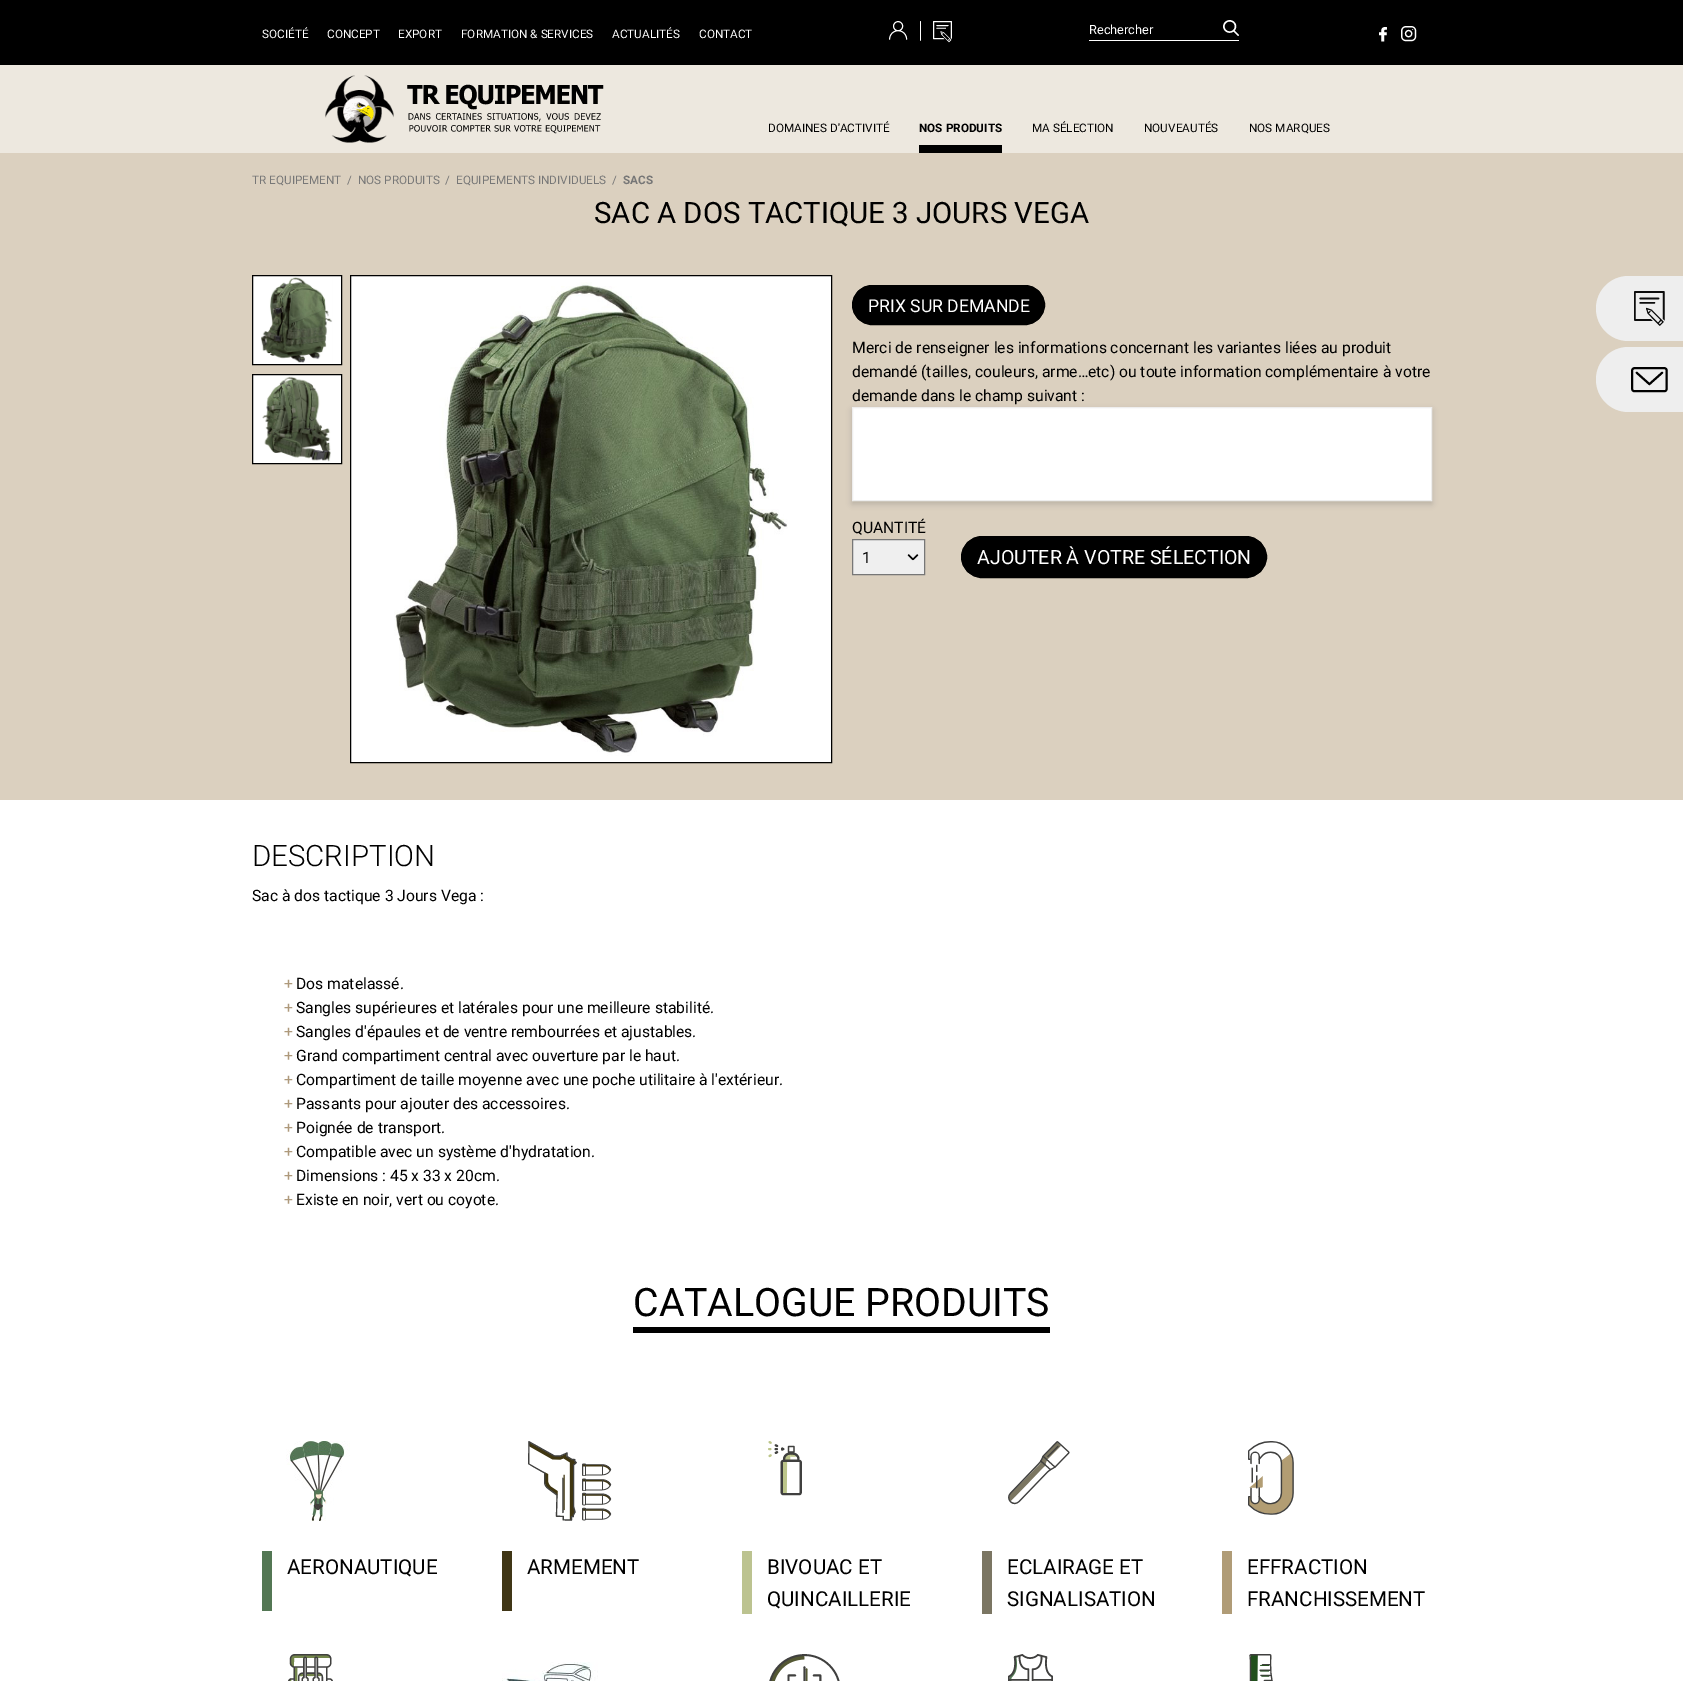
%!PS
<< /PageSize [1683 1681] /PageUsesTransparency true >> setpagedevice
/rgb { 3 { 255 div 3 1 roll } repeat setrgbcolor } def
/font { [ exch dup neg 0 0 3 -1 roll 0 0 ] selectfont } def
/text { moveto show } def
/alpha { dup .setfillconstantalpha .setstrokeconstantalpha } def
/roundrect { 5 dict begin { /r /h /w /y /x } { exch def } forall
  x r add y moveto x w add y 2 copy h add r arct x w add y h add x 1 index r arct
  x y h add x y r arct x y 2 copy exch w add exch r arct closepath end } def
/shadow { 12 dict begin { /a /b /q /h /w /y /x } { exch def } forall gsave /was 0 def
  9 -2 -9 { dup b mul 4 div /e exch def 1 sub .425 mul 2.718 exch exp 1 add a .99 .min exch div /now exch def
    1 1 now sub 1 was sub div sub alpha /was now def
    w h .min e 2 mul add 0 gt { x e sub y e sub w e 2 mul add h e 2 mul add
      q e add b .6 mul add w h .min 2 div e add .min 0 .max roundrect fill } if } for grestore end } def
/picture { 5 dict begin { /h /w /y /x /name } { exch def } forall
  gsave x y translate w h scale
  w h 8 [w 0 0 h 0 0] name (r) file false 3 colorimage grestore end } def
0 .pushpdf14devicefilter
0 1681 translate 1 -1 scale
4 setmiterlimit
255 255 255 rgb
0 0 1683 1681 rectfill
219 208 191 rgb
0 153 1683 647 rectfill
0 0 0 rgb
0 0 1683 65 rectfill
(img_01.rgb) 889 21 19 19 picture
(img_02.rgb) 920 21 1 20 picture
(img_03.rgb) 933 21 19 22 picture
255 255 255 rgb
1089 40 150 1 rectfill
(img_04.rgb) 1223 20 16 16 picture
(img_05.rgb) 1379 27 8 15 picture
(img_06.rgb) 1401 26 16 16 picture
237 232 223 rgb
0 65 1683 88 rectfill
(img_07.rgb) 325 75 279 68 picture
0 0 0 rgb
919 145 83 8 rectfill
255 255 255 rgb
253 276 88 88 rectfill
(img_08.rgb) 261 277 72 86 picture
0 0 0 rgb
252.5 275.5 89 89 rectstroke
255 255 255 rgb
253 375 88 88 rectfill
(img_09.rgb) 262 376 69 86 picture
0 0 0 rgb
252.5 374.5 89 89 rectstroke
255 255 255 rgb
350.5 275.5 moveto 481 0 rlineto 0 487 rlineto -481 0 rlineto closepath gsave fill grestore
0 0 0 rgb
stroke
(img_10.rgb) 394 282 394 474 picture
852.5 285.5 192 39 19.5 roundrect gsave fill grestore
stroke
852 410 580 94 0 3 0.15 shadow
255 255 255 rgb
852.5 407.5 moveto 579 0 rlineto 0 93 rlineto -579 0 rlineto closepath gsave fill grestore
238 238 238 rgb
stroke
239 239 239 rgb
853 540 71 34 rectfill
(img_11.rgb) 907 554 12 7 picture
119 119 119 rgb
852.5 539.5 72 35 rectstroke
0 0 0 rgb
961.5 536.5 305 41 20.5 roundrect gsave fill grestore
stroke
633 1327 417 6 rectfill
(img_12.rgb) 286 1441 64 80 picture
83 119 84 rgb
262 1551 10 60 rectfill
(img_13.rgb) 528 1441 84 80 picture
64 54 22 rgb
502 1551 10 60 rectfill
(img_14.rgb) 768 1441 34 55 picture
188 195 144 rgb
742 1551 10 63 rectfill
(img_15.rgb) 1008 1441 62 64 picture
123 118 99 rgb
982 1551 10 63 rectfill
(img_16.rgb) 1248 1441 46 74 picture
176 156 119 rgb
1222 1551 10 63 rectfill
(img_17.rgb) 288 1654 45 27 picture
(img_18.rgb) 502 1662 96 19 picture
(img_19.rgb) 769 1654 71 27 picture
(img_20.rgb) 1008 1654 45 27 picture
(img_21.rgb) 1249 1654 24 27 picture
238 238 238 rgb
1628.5 276 moveto 54.5 0 rlineto 0 65 rlineto -54.5 0 rlineto -18 0 -32.5 -14.5 -32.5 -32.5 rcurveto 0 -18 14.5 -32.5 32.5 -32.5 rcurveto closepath fill
(img_22.rgb) 1634 291 31 35 picture
1628.5 347 moveto 54.5 0 rlineto 0 65 rlineto -54.5 0 rlineto -18 0 -32.5 -14.5 -32.5 -32.5 rcurveto 0 -18 14.5 -32.5 32.5 -32.5 rcurveto closepath fill
(img_23.rgb) 1631 367 37 26 picture
/Roboto-Regular 12 font
255 255 255 rgb
(SOCIÉTÉ) 262 38 text
(CONCEPT) 327 38 text
(EXPORT) 398 38 text
(FORMATION & SERVICES) 461 38 text
(ACTUALITÉS) 612 38 text
(CONTACT) 699 38 text
/Roboto-Regular 13 font
(Rechercher) 1089 34 text
/Roboto-Regular 12 font
0 0 0 rgb
(DOMAINES D'ACTIVITÉ) 768 132 text
/Roboto-Bold 12 font
(NOS PRODUITS) 919 132 text
/Roboto-Regular 12 font
(MA SÉLECTION) 1032 132 text
(NOUVEAUTÉS) 1144 132 text
(NOS MARQUES) 1249 132 text
119 119 119 rgb
(TR EQUIPEMENT) 252 184 text
(/) 347 184 text
(NOS PRODUITS) 358 184 text
(/) 445 184 text
(EQUIPEMENTS INDIVIDUELS) 456 184 text
(/) 612 184 text
/Roboto-Bold 12 font
(SACS) 623 184 text
/Roboto-Regular 30 font
0 0 0 rgb
(SAC A DOS TACTIQUE 3 JOURS VEGA) 594 223 text
/Roboto-Regular 18 font
255 255 255 rgb
(PRIX SUR DEMANDE) 868 312 text
/Roboto-Regular 16 font
0 0 0 rgb
(Merci de renseigner les informations concernant les variantes liées au produit) 852 353 text
(demandé \(tailles, couleurs, arme…etc\) ou toute information complémentaire à votre) 852 377 text
(demande dans le champ suivant :) 852 401 text
(QUANTITÉ) 852 533 text
(1) 862 563 text
/Roboto-Regular 20 font
255 255 255 rgb
(AJOUTER À VOTRE SÉLECTION) 977 564 text
/Roboto-Light 30 font
0 0 0 rgb
(DESCRIPTION) 252 866 text
/Roboto-Regular 16 font
(Sac à dos tactique 3 Jours Vega :) 252 901 text
174 153 123 rgb
(+) 284 989 text
0 0 0 rgb
(Dos matelassé.) 296 989 text
174 153 123 rgb
(+) 284 1013 text
0 0 0 rgb
(Sangles supérieures et latérales pour une meilleure stabilité.) 296 1013 text
174 153 123 rgb
(+) 284 1037 text
0 0 0 rgb
(Sangles d'épaules et de ventre rembourrées et ajustables.) 296 1037 text
174 153 123 rgb
(+) 284 1061 text
0 0 0 rgb
(Grand compartiment central avec ouverture par le haut.) 296 1061 text
174 153 123 rgb
(+) 284 1085 text
0 0 0 rgb
(Compartiment de taille moyenne avec une poche utilitaire à l'extérieur.) 296 1085 text
174 153 123 rgb
(+) 284 1109 text
0 0 0 rgb
(Passants pour ajouter des accessoires.) 296 1109 text
174 153 123 rgb
(+) 284 1133 text
0 0 0 rgb
(Poignée de transport.) 296 1133 text
174 153 123 rgb
(+) 284 1157 text
0 0 0 rgb
(Compatible avec un système d'hydratation.) 296 1157 text
174 153 123 rgb
(+) 284 1181 text
0 0 0 rgb
(Dimensions : 45 x 33 x 20cm.) 296 1181 text
174 153 123 rgb
(+) 284 1205 text
0 0 0 rgb
(Existe en noir, vert ou coyote.) 296 1205 text
/Roboto-Regular 40 font
(CATALOGUE PRODUITS) 633 1316 text
/Roboto-Regular 21 font
(AERONAUTIQUE) 287 1574 text
(ARMEMENT) 527 1574 text
(BIVOUAC ET) 767 1574 text
(QUINCAILLERIE) 767 1606 text
(ECLAIRAGE ET) 1007 1574 text
(SIGNALISATION) 1007 1606 text
(EFFRACTION) 1247 1574 text
(FRANCHISSEMENT) 1247 1606 text
.poppdf14devicefilter showpage
